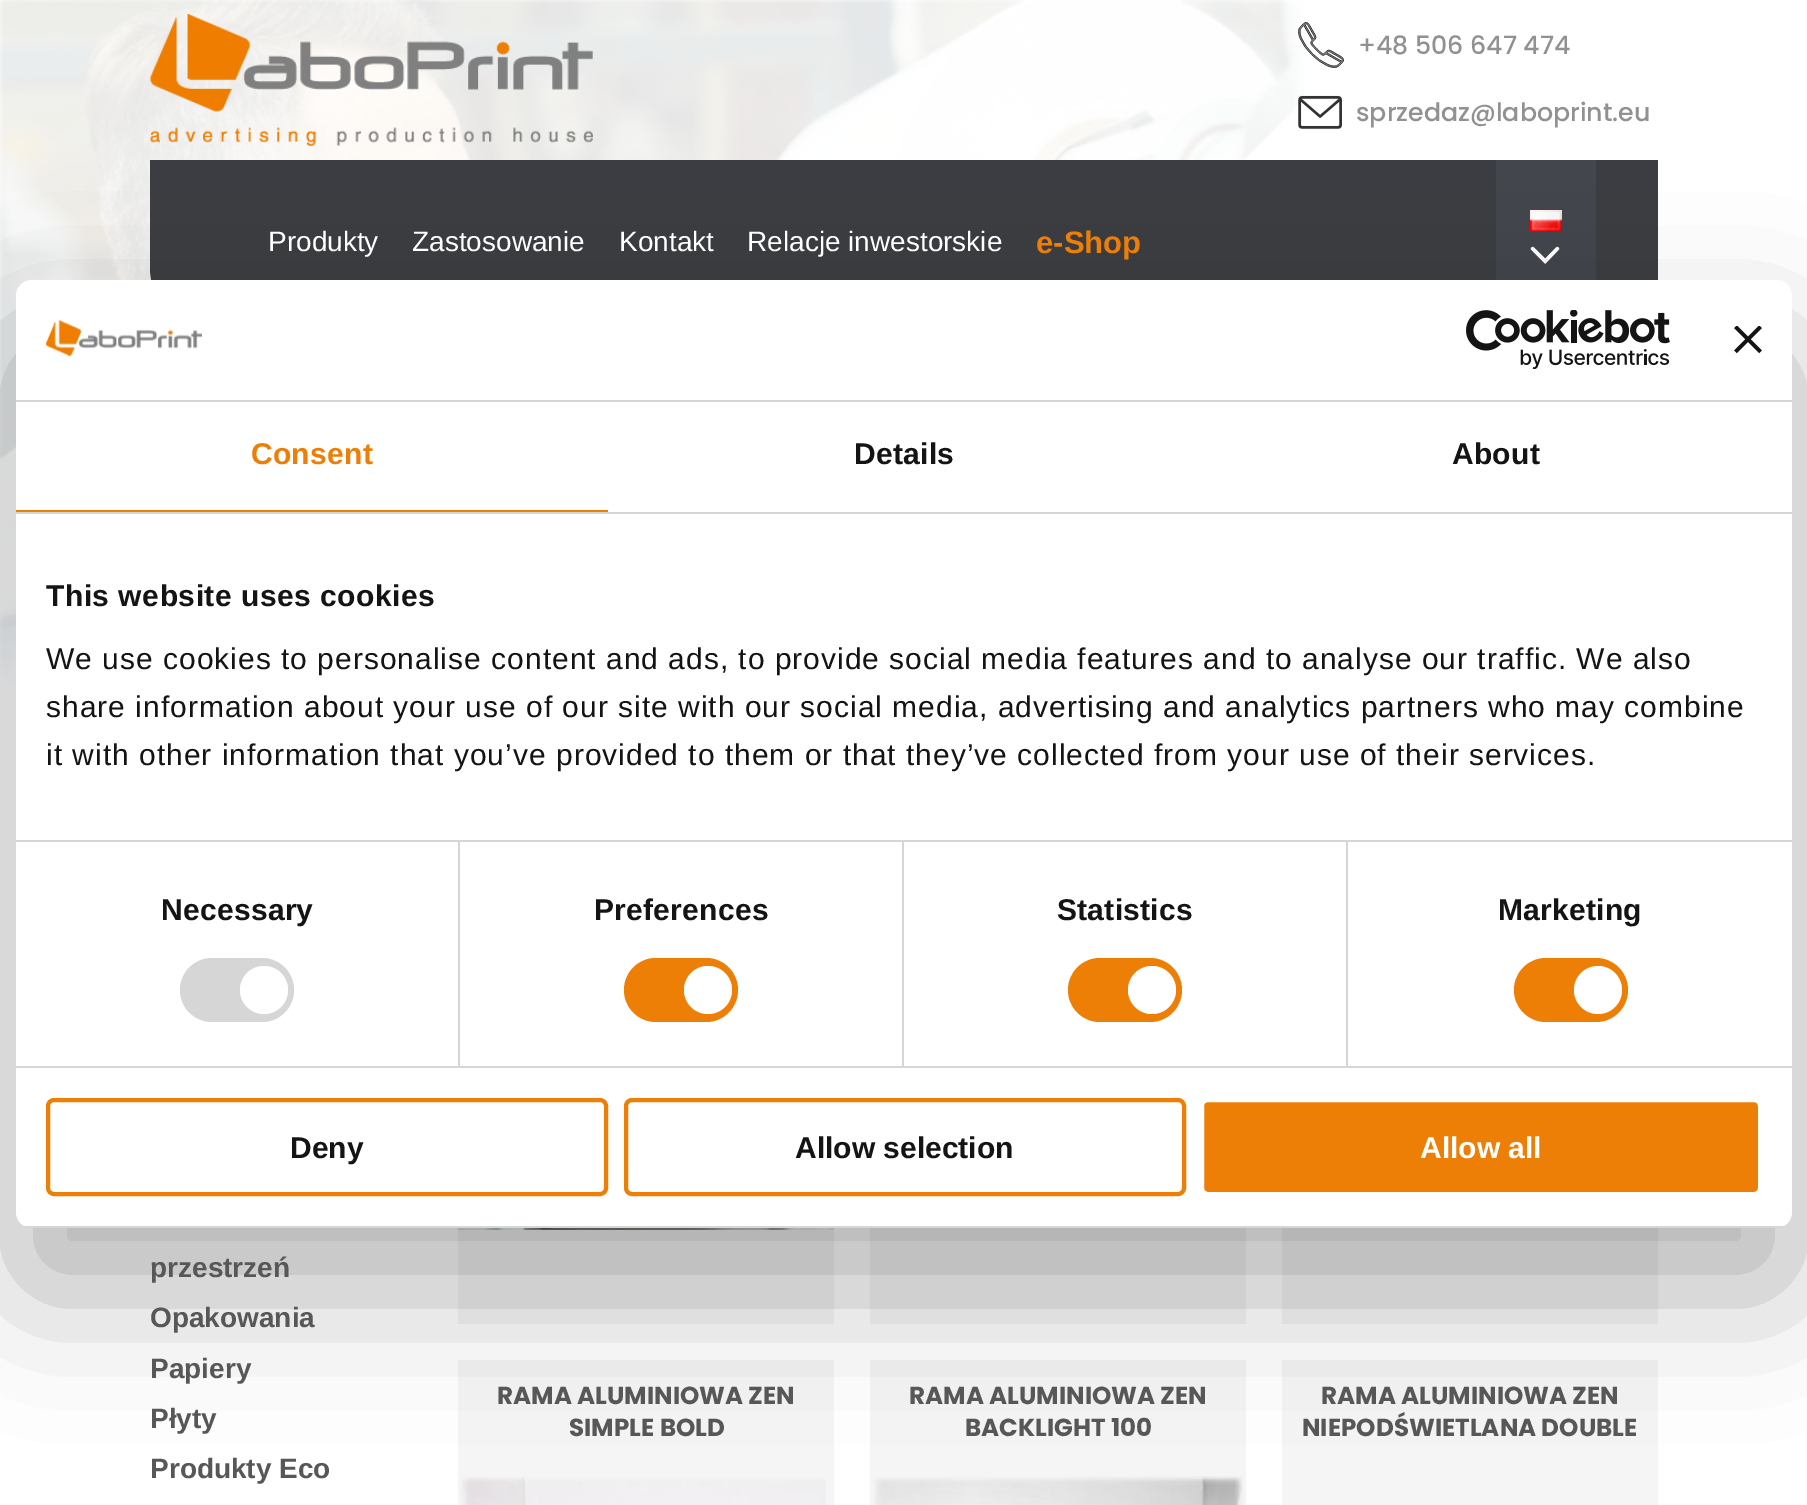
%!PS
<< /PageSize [1807 1505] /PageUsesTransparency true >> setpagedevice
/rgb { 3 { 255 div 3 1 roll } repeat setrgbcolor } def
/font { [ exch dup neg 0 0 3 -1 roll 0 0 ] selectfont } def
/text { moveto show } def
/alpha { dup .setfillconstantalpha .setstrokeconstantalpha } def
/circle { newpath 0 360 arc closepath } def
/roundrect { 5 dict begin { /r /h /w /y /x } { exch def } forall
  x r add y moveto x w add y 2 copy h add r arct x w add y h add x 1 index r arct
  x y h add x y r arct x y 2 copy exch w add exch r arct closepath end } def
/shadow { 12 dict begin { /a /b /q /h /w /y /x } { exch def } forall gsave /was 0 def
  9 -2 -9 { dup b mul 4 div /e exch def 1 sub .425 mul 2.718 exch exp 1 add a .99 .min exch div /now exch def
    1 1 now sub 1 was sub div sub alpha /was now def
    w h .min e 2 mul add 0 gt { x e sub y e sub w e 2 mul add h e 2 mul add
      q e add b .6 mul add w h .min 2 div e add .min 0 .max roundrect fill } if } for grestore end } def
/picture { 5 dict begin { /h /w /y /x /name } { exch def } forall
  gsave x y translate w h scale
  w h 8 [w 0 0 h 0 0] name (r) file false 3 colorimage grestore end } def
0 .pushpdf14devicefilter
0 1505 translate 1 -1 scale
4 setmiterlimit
255 255 255 rgb
0 0 1807 1505 rectfill
(img_01.rgb) 0 0 1304 690 picture
(img_02.rgb) 150 14 443 132 picture
(img_03.rgb) 1298 22 46 46 picture
(img_04.rgb) 1298 95 44 35 picture
59 61 66 rgb
150 160 moveto 1508 0 rlineto 0 168 rlineto -1448 0 rlineto -33 0 -60 -27 -60 -60 rcurveto closepath fill
67 70 77 rgb
1496 160 100 120 rectfill
(img_05.rgb) 1530 210 32 22 picture
(img_06.rgb) 1530 246 30 18 picture
245 245 245 rgb
458 1230 376 94 rectfill
(img_07.rgb) 458 1228 376 2 picture
870 1228 376 96 rectfill
1282 1228 376 96 rectfill
458 1360 376 145 rectfill
(img_08.rgb) 461 1477 365 28 picture
870 1360 376 145 rectfill
(img_09.rgb) 874 1476 369 29 picture
1282 1360 376 145 rectfill
0 0 0 rgb
16 344 1776 948 16 68 0.3 shadow
255 255 255 rgb
16 280 1776 948 16 roundrect fill
214 214 214 rgb
16 400 1776 2 rectfill
(img_10.rgb) 46 320 156 37 picture
(img_11.rgb) 1466 310 204 60 picture
(img_12.rgb) 1734 326 28 28 picture
16 512 1776 2 rectfill
237 126 6 rgb
16 510 592 2 rectfill
214 214 214 rgb
16 840 1776 2 rectfill
16 1066 1776 2 rectfill
458 842 2 224 rectfill
180 958 114 64 32 roundrect fill
255 255 255 rgb
264 990 24 circle fill
214 214 214 rgb
902 842 2 224 rectfill
237 126 6 rgb
624 958 114 64 32 roundrect fill
255 255 255 rgb
708 990 24 circle fill
214 214 214 rgb
1346 842 2 224 rectfill
237 126 6 rgb
1068 958 114 64 32 roundrect fill
255 255 255 rgb
1152 990 24 circle fill
237 126 6 rgb
1514 958 114 64 32 roundrect fill
255 255 255 rgb
1598 990 24 circle fill
gsave
16 280 1776 948 16 roundrect clip newpath
214 214 214 rgb
16 1226 1776 2 rectfill
grestore
237 126 6 rgb
4 setlinewidth
48 1100 558 94 6 roundrect stroke
626 1100 558 94 6 roundrect stroke
1202 1100 558 94 6 roundrect gsave fill grestore
255 255 255 rgb
stroke
/Poppins-Medium 25.25 font
145 145 145 rgb
(+48 506 647 474) 1358 54 text
(sprzedaz@laboprint.eu) 1356 121 text
/LiberationSans-Regular 28 font
255 255 255 rgb
(Produkty) 268 251 text
(Zastosowanie) 412 251 text
(Kontakt) 619 251 text
(Relacje inwestorskie) 747 251 text
/LiberationSans-Bold 31 font
237 126 6 rgb
(e-Shop) 1036 253 text
/LiberationSans-Bold 28 font
87 87 87 rgb
(przestrzeń) 150 1277 text
(Opakowania) 150 1327 text
(Papiery) 150 1378 text
(Płyty) 150 1428 text
(Produkty Eco) 150 1478 text
/Poppins-Bold 24.6 font
(RAMA ALUMINIOWA ZEN) 497 1404 text
(SIMPLE BOLD) 569 1436 text
(RAMA ALUMINIOWA ZEN) 909 1404 text
(BACKLIGHT 100) 965 1436 text
(RAMA ALUMINIOWA ZEN) 1321 1404 text
(NIEPODŚWIETLANA DOUBLE) 1302 1436 text
/LiberationSans-Bold 30 font
237 126 6 rgb
251 464 moveto 0.25 0 (Consent) ashow
20 20 20 rgb
854 464 moveto 0.25 0 (Details) ashow
1452 464 moveto 0.25 0 (About) ashow
46 606 moveto 0.5 0 (This website uses cookies) ashow
/LiberationSans-Regular 30 font
46 669 moveto 1 0 (We use cookies to personalise content and ads, to provide social media features and to analyse our traffic. We also) ashow
46 717 moveto 1 0 (share information about your use of our site with our social media, advertising and analytics partners who may combine) ashow
46 765 moveto 1 0 (it with other information that you’ve provided to them or that they’ve collected from your use of their services.) ashow
/LiberationSans-Bold 30 font
161 920 moveto 0.25 0 (Necessary) ashow
594 920 moveto 0.25 0 (Preferences) ashow
1057 920 moveto 0.25 0 (Statistics) ashow
1498 920 moveto 0.25 0 (Marketing) ashow
(Deny) 290 1158 text
(Allow selection) 795 1158 text
255 255 255 rgb
(Allow all) 1420 1158 text
.poppdf14devicefilter showpage
